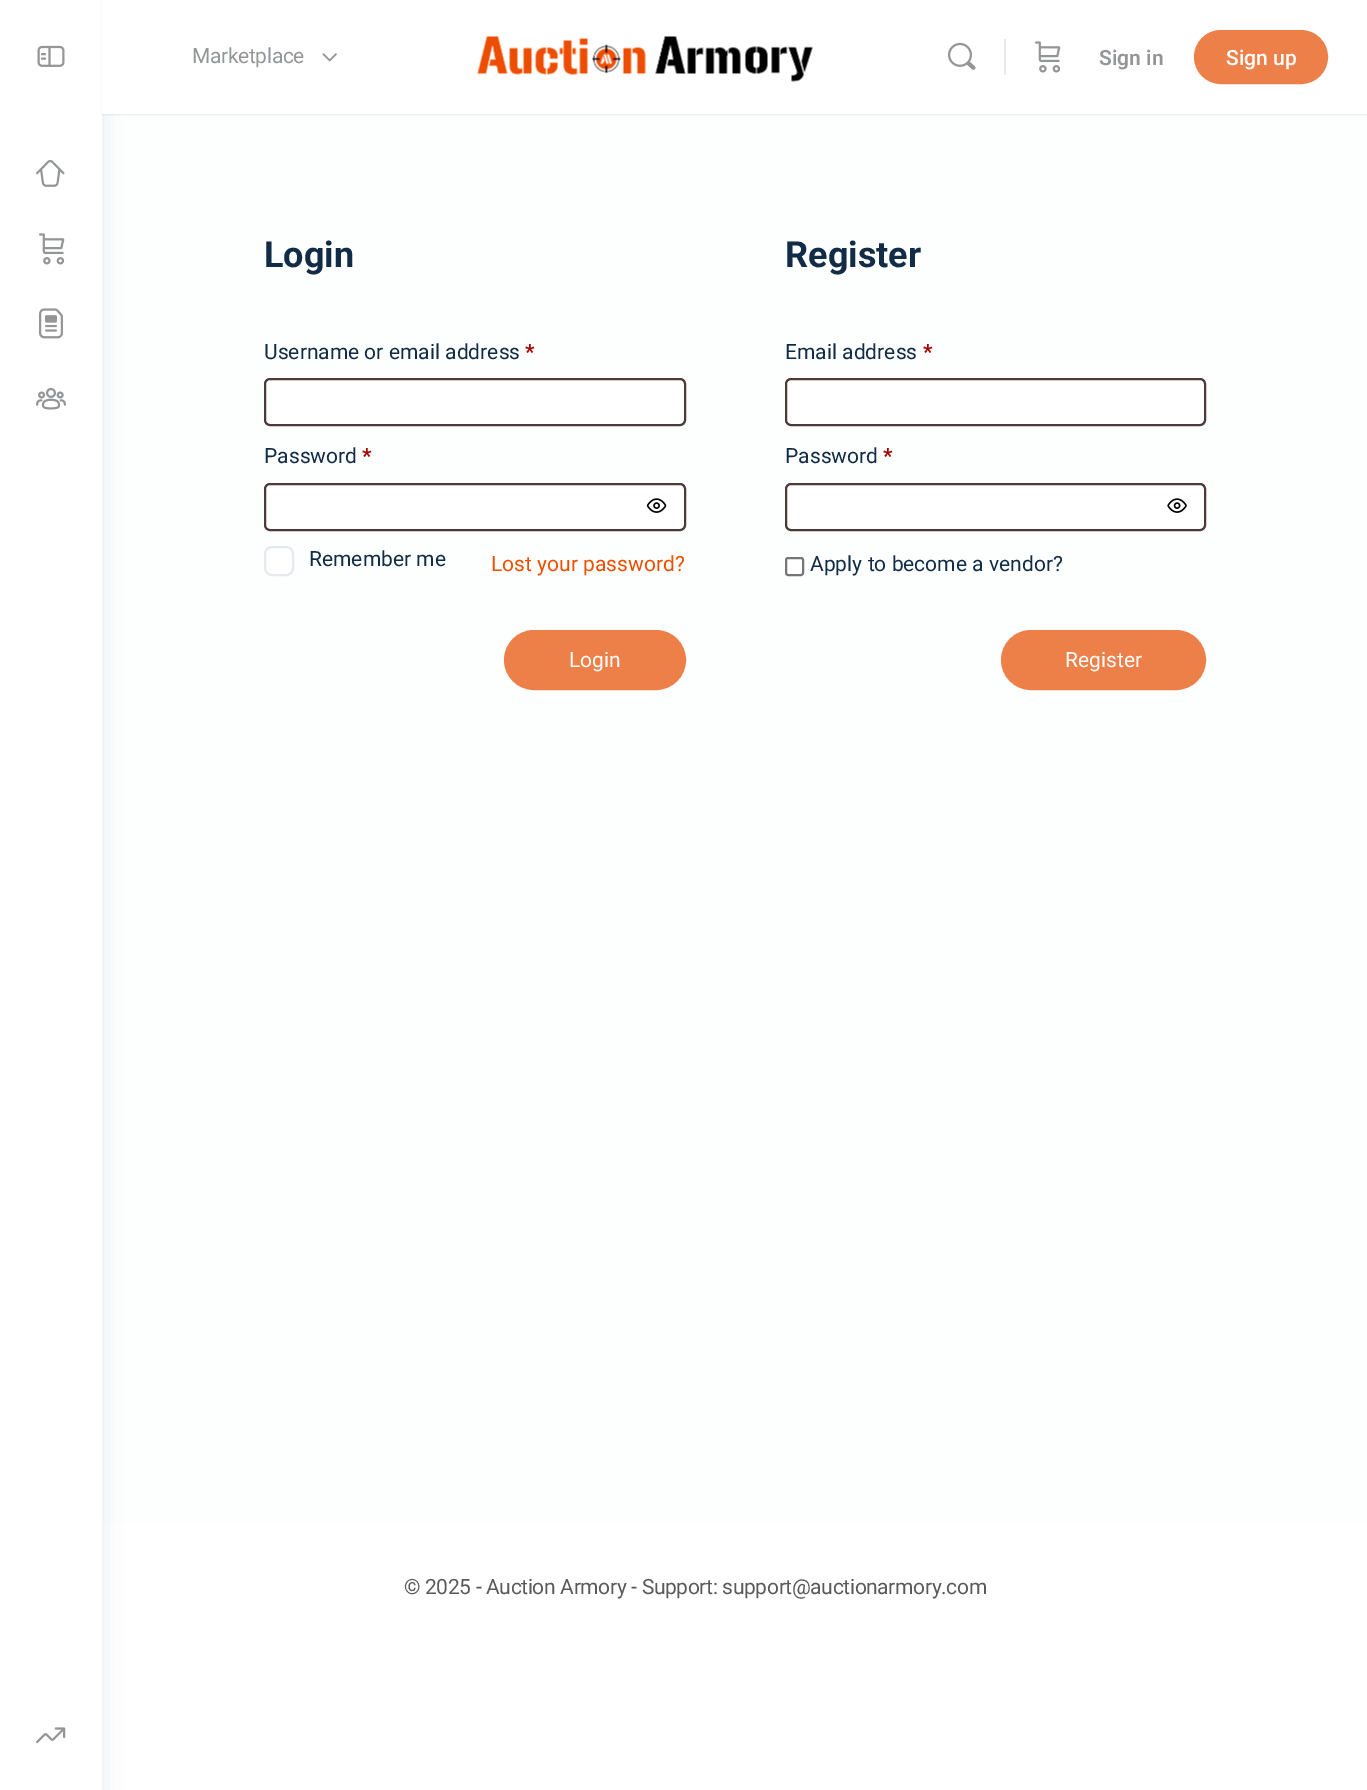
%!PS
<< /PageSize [1367 1790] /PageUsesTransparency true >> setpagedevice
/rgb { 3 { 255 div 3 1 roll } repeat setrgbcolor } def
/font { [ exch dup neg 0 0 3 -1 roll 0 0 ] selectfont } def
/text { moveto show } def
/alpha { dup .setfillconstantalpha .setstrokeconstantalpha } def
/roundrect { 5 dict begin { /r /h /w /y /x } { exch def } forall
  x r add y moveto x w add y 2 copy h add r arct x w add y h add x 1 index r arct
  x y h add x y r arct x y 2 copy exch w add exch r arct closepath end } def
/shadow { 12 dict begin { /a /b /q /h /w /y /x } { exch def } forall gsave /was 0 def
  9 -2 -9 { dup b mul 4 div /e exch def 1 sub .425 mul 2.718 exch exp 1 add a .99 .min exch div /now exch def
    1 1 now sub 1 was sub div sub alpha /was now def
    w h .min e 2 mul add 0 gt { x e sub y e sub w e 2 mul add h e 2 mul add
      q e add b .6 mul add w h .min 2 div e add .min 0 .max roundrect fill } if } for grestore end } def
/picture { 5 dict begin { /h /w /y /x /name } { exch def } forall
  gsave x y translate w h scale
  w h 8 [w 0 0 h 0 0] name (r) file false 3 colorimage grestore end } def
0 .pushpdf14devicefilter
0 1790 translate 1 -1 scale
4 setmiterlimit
252 255 254 rgb
0 0 1367 1790 rectfill
255 255 255 rgb
102 1523 1265 267 rectfill
18 43 70 rgb
0 5 102 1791 0 10 0.1 shadow
255 255 255 rgb
0 0 102 1790 rectfill
(img_01.rgb) 37 45 28 22 picture
(img_02.rgb) 36 159 29 28 picture
(img_03.rgb) 39 233 26 32 picture
(img_04.rgb) 39 308 24 31 picture
(img_05.rgb) 36 387 30 23 picture
(img_06.rgb) 36 1727 30 17 picture
65 71 108 rgb
102 0 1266 114 0 1 0.15 shadow
0.05 alpha
139 141 157 rgb
102 114 1265 2 rectfill
1 alpha
255 255 255 rgb
102 0 1265 114 rectfill
(img_07.rgb) 322 53 15 9 picture
(img_08.rgb) 477 36 336 46 picture
(img_09.rgb) 948 42 28 28 picture
233 234 234 rgb
1004 39 2 36 rectfill
(img_03.rgb) 1035 41 26 32 picture
237 128 73 rgb
1195 31 132 52 26 roundrect gsave fill grestore
2 setlinewidth
stroke
255 255 255 rgb
265 379 420 46 5 roundrect gsave fill grestore
77 57 57 rgb
stroke
255 255 255 rgb
265 484 420 46 5 roundrect gsave fill grestore
77 57 57 rgb
stroke
(img_10.rgb) 646 498 21 15 picture
255 255 255 rgb
265 547 28 28 7 roundrect gsave fill grestore
231 233 236 rgb
stroke
237 128 73 rgb
505 631 180 58 29 roundrect gsave fill grestore
stroke
255 255 255 rgb
786 379 419 46 5 roundrect gsave fill grestore
77 57 57 rgb
stroke
255 255 255 rgb
786 484 419 46 5 roundrect gsave fill grestore
77 57 57 rgb
stroke
(img_11.rgb) 1167 498 20 15 picture
255 255 255 rgb
786 558 17 17 2 roundrect gsave fill grestore
118 118 118 rgb
stroke
237 128 73 rgb
1002 631 203 58 29 roundrect gsave fill grestore
stroke
/Roboto-Regular 21 font
147 149 151 rgb
192 63 moveto -0.35 0 (Marketplace) ashow
/Roboto-SemiBold 21 font
(Sign in) 1099 65 text
/Roboto-Medium 21 font
255 255 255 rgb
(Sign up) 1226 65 text
/Roboto-Bold 36 font
18 43 70 rgb
(Login) 264 267 text
/Roboto-Regular 21 font
(Username or email address) 264 359 text
/Roboto-Bold 21 font
170 0 0 rgb
(*) 525 359 text
/Roboto-Regular 21 font
18 43 70 rgb
(Password) 264 463 text
/Roboto-Bold 21 font
170 0 0 rgb
(*) 362 463 text
/Roboto-Regular 21 font
18 43 70 rgb
(Remember me) 309 566 text
238 78 0 rgb
(Lost your password?) 491 571 text
255 255 255 rgb
(Login) 569 667 text
/Roboto-Bold 36 font
18 43 70 rgb
(Register) 785 267 text
/Roboto-Regular 21 font
(Email address) 785 359 text
/Roboto-Bold 21 font
170 0 0 rgb
(*) 923 359 text
/Roboto-Regular 21 font
18 43 70 rgb
(Password) 785 463 text
/Roboto-Bold 21 font
170 0 0 rgb
(*) 883 463 text
/Roboto-Regular 21 font
18 43 70 rgb
(Apply to become a vendor?) 810 571 text
255 255 255 rgb
(Register) 1065 667 text
90 90 90 rgb
404 1594 moveto -0.35 0 (© 2025 - Auction Armory - Support: support@auctionarmory.com) ashow
.poppdf14devicefilter showpage
